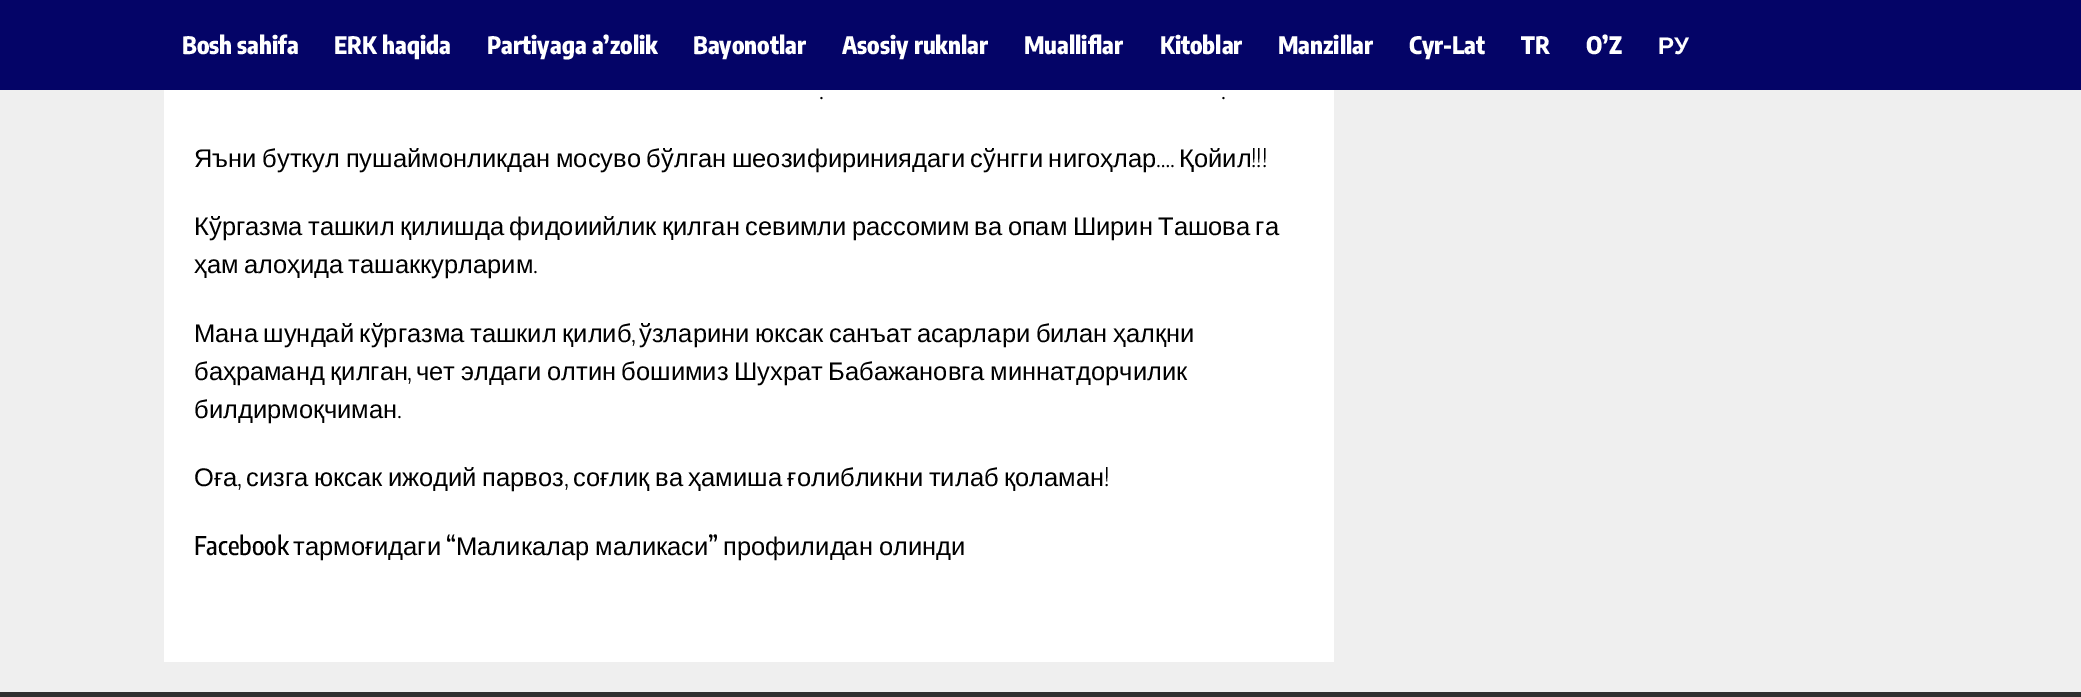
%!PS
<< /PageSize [2081 697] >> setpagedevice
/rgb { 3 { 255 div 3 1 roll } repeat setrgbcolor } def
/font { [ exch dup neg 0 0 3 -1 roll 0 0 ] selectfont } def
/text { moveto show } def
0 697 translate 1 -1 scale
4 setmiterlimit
239 239 239 rgb
0 0 2081 697 rectfill
4 4 103 rgb
0 0 2081 90 rectfill
255 255 255 rgb
164 90 1170 572 rectfill
47 47 47 rgb
0 692 2081 5 rectfill
/EncodeSansCondensed-ExtraBold 24 font
255 255 255 rgb
(Bosh sahifa) 182 54 text
(ERK haqida) 334 54 text
(Partiyaga a’zolik) 487 54 text
(Bayonotlar) 693 54 text
(Asosiy ruknlar) 842 54 text
(Mualliflar) 1024 54 text
(Kitoblar) 1160 54 text
(Manzillar) 1278 54 text
(Cyr-Lat) 1409 54 text
(TR) 1521 54 text
(O’Z) 1586 54 text
/LiberationSans-Bold 24 font
(РУ) 1658 54 text
/EncodeSansCondensed-Light 25.5 font
0 0 0 rgb
(.) 819 99 text
(.) 1221 99 text
/LiberationSans-Regular 25.5 font
194 167 moveto -1.5 0 32 (Яъни буткул пушаймонликдан мосуво бўлган шеозифириниядаги сўнгги нигоҳлар) widthshow
/EncodeSansCondensed-Light 25.5 font
(….) 1156 167 text
/LiberationSans-Regular 25.5 font
(Қойил) 1179 167 text
/EncodeSansCondensed-Light 25.5 font
(!!!) 1251 167 text
/LiberationSans-Regular 25.5 font
194 235 moveto -1.75 0 32 (Кўргазма ташкил қилишда фидоиийлик қилган севимли рассомим ва опам Ширин Ташова га) widthshow
194 273 moveto -1.75 0 32 (ҳам алоҳида ташаккурларим) widthshow
/EncodeSansCondensed-Light 25.5 font
(.) 533 273 text
/LiberationSans-Regular 25.5 font
194 342 moveto -1.5 0 32 (Мана шундай кўргазма ташкил қилиб) widthshow
/EncodeSansCondensed-Light 25.5 font
(,) 631 342 text
/LiberationSans-Regular 25.5 font
639 342 moveto -1.5 0 32 (ўзларини юксак санъат асарлари билан ҳалқни) widthshow
194 380 moveto -1.5 0 32 (баҳраманд қилган) widthshow
/EncodeSansCondensed-Light 25.5 font
(,) 407 380 text
/LiberationSans-Regular 25.5 font
416 380 moveto -1.5 0 32 (чет элдаги олтин бошимиз Шухрат Бабажановга миннатдорчилик) widthshow
(билдирмоқчиман) 194 418 text
/EncodeSansCondensed-Light 25.5 font
(.) 397 418 text
/LiberationSans-Regular 25.5 font
(Оға) 194 486 text
/EncodeSansCondensed-Light 25.5 font
(,) 237 486 text
/LiberationSans-Regular 25.5 font
246 486 moveto -1.5 0 32 (сизга юксак ижодий парвоз) widthshow
/EncodeSansCondensed-Light 25.5 font
(,) 564 486 text
/LiberationSans-Regular 25.5 font
573 486 moveto -1.5 0 32 (соғлиқ ва ҳамиша ғолибликни тилаб қоламан) widthshow
/EncodeSansCondensed-Light 25.5 font
(!) 1104 486 text
/EncodeSansCondensed-Medium 25.5 font
(Facebook) 194 555 text
/LiberationSans-Regular 25.5 font
(тармоғидаги) 293 555 text
/EncodeSansCondensed-Medium 25.5 font
(“) 446 555 text
/LiberationSans-Regular 25.5 font
456 555 moveto -1 0 32 (Маликалар маликаси) widthshow
/EncodeSansCondensed-Medium 25.5 font
(”) 708 555 text
/LiberationSans-Regular 25.5 font
723 555 moveto -1 0 32 (профилидан олинди) widthshow
showpage
